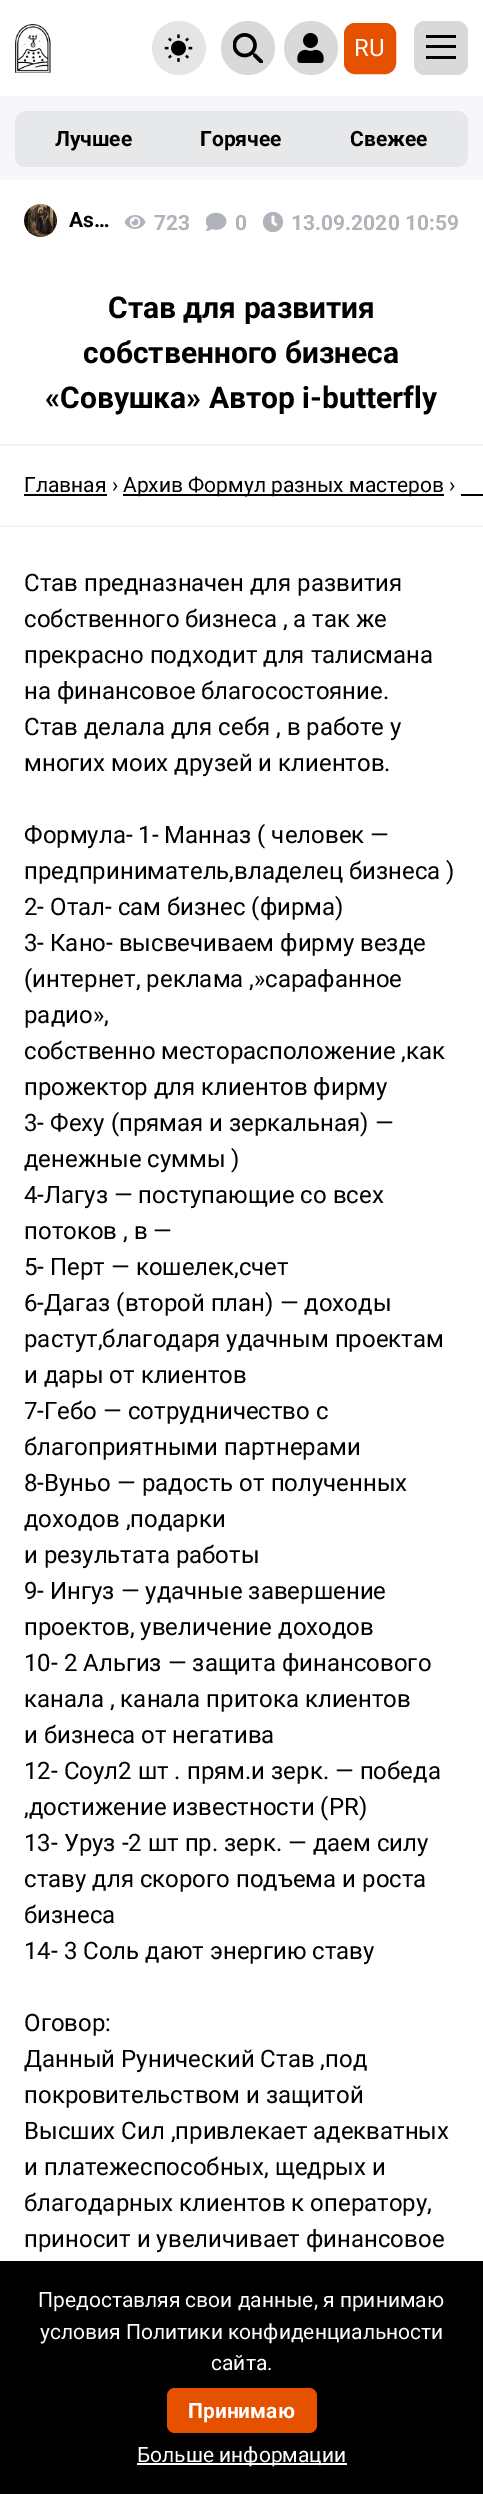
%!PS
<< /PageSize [483 2494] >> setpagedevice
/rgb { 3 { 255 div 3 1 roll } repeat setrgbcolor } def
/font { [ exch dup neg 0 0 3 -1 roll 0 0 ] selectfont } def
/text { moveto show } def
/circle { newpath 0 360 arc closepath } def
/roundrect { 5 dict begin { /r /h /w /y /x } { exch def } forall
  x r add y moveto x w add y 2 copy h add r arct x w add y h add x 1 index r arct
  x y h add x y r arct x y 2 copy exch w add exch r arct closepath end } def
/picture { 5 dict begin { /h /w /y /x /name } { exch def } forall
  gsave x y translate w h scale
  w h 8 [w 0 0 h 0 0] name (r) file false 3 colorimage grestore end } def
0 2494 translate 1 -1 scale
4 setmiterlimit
247 247 250 rgb
0 0 483 2494 rectfill
255 255 255 rgb
0 0 483 96 rectfill
(img_01.rgb) 15 24 36 49 picture
229 229 229 rgb
179 48 27 circle fill
(img_02.rgb) 164 34 29 28 picture
217 217 217 rgb
248 48 27 circle fill
(img_03.rgb) 233 33 30 30 picture
311 48 27 circle fill
(img_04.rgb) 297 33 27 30 picture
230 81 0 rgb
345 24 50 49 10 roundrect gsave fill grestore
2 setlinewidth
stroke
217 217 217 rgb
414 21 54 54 11 roundrect fill
0 0 0 rgb
426 35 30 3 rectfill
426 45 30 3 rectfill
426 56 30 3 rectfill
231 232 234 rgb
15 111 453 56 11 roundrect fill
255 255 255 rgb
0 180 483 2081 rectfill
(img_05.rgb) 24 204 33 33 picture
(img_06.rgb) 125 215 21 14 picture
(img_07.rgb) 206 212 21 20 picture
(img_08.rgb) 263 212 21 21 picture
243 244 245 rgb
0 444 483 2 rectfill
0 525 483 2 rectfill
0 0 0 rgb
24 494 83 2 rectfill
123 494 321 2 rectfill
461 494 22 2 rectfill
0 2261 483 233 rectfill
230 81 0 rgb
167 2388 150 45 8 roundrect fill
255 255 255 rgb
137 2463 210 2 rectfill
/Roboto-Regular 24 font
(RU) 354 56 text
/Roboto-Bold 21 font
0 0 0 rgb
(Лучшее) 55 146 text
(Горячее) 200 146 text
(Свежее) 350 146 text
(As…) 69 227 text
177 179 186 rgb
(723) 154 230 text
(0) 235 230 text
(13.09.2020 10:59) 291 230 text
/Roboto-Bold 30 font
0 0 0 rgb
(Став для развития) 108 318 text
(собственного бизнеса) 83 363 text
(«Совушка» Автор i-butterfly) 45 408 text
/Roboto-Regular 21 font
(Главная ›) 24 492 text
(Архив Формул разных мастеров ›) 123 492 text
/Roboto-Regular 24 font
(Став предназначен для развития) 24 591 text
(собственного бизнеса , а так же) 24 627 text
(прекрасно подходит для талисмана) 24 663 text
(на финансовое благосостояние.) 24 699 text
(Став делала для себя , в работе у) 24 735 text
(многих моих друзей и клиентов.) 24 771 text
(Формула- 1- Манназ \( человек —) 24 843 text
(предприниматель,владелец бизнеса \)) 24 879 text
(2- Отал- сам бизнес \(фирма\)) 24 915 text
(3- Кано- высвечиваем фирму везде) 24 951 text
(\(интернет, реклама ,»сарафанное) 24 987 text
(радио»,) 24 1023 text
(собственно месторасположение ,как) 24 1059 text
(прожектор для клиентов фирму) 24 1095 text
(3- Феху \(прямая и зеркальная\) —) 24 1131 text
(денежные суммы \)) 24 1167 text
(4-Лагуз — поступающие со всех) 24 1203 text
(потоков , в —) 24 1239 text
(5- Перт — кошелек,счет) 24 1275 text
(6-Дагаз \(второй план\) — доходы) 24 1311 text
(растут,благодаря удачным проектам) 24 1347 text
(и дары от клиентов) 24 1383 text
(7-Гебо — сотрудничество с) 24 1419 text
(благоприятными партнерами) 24 1455 text
(8-Вуньо — радость от полученных) 24 1491 text
(доходов ,подарки) 24 1527 text
(и результата работы) 24 1563 text
(9- Ингуз — удачные завершение) 24 1599 text
(проектов, увеличение доходов) 24 1635 text
(10- 2 Альгиз — защита финансового) 24 1671 text
(канала , канала притока клиентов) 24 1707 text
(и бизнеса от негатива) 24 1743 text
(12- Соул2 шт . прям.и зерк. — победа) 24 1779 text
(,достижение известности \(PR\)) 24 1815 text
(13- Уруз -2 шт пр. зерк. — даем силу) 24 1851 text
(ставу для скорого подъема и роста) 24 1887 text
(бизнеса) 24 1923 text
(14- 3 Соль дают энергию ставу) 24 1959 text
(Оговор:) 24 2031 text
(Данный Рунический Став ,под) 24 2067 text
(покровительством и защитой) 24 2103 text
(Высших Сил ,привлекает адекватных) 24 2139 text
(и платежеспособных, щедрых и) 24 2175 text
(благодарных клиентов к оператору,) 24 2211 text
(приносит и увеличивает финансовое) 24 2247 text
/Roboto-Regular 21 font
255 255 255 rgb
(Предоставляя свои данные, я принимаю) 38 2307 text
(условия Политики конфиденциальности) 40 2339 text
(cайта.) 211 2370 text
/Roboto-Bold 21 font
(Принимаю) 188 2418 text
/Roboto-Regular 21 font
(Больше информации) 137 2462 text
showpage
